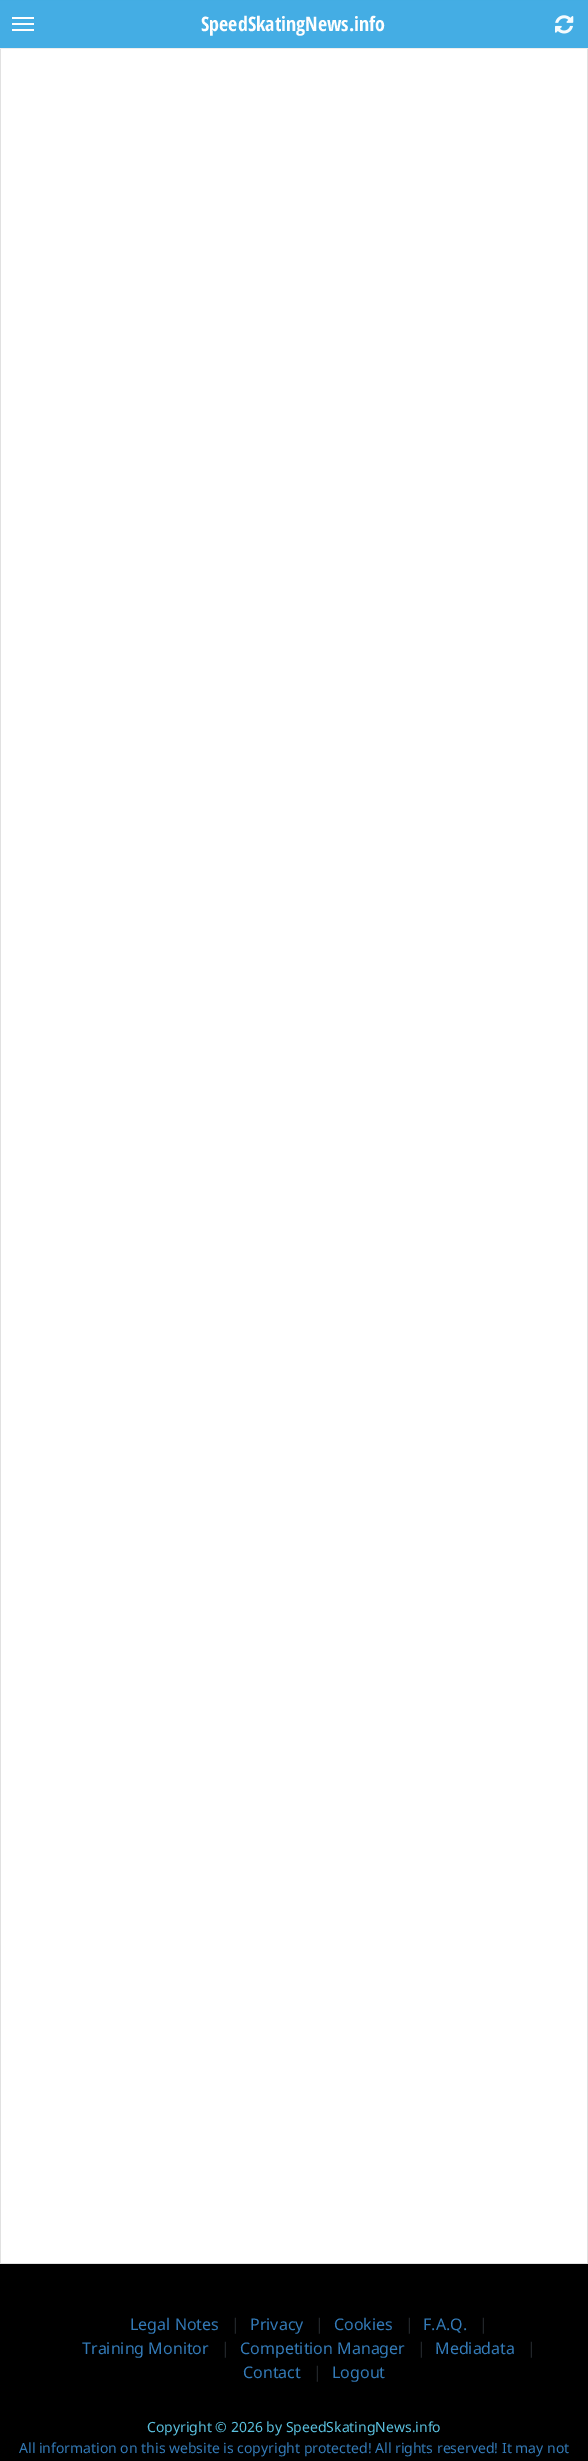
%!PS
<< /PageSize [588 2461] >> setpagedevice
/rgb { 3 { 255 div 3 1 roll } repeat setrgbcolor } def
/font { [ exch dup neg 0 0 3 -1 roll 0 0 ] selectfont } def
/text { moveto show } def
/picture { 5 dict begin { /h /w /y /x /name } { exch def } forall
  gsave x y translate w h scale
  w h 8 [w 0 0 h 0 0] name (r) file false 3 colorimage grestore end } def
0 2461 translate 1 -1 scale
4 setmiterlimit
238 238 238 rgb
0 0 588 2461 rectfill
68 173 228 rgb
0 1 588 47 rectfill
67 173 227 rgb
0 0 588 1 rectfill
254 254 254 rgb
12 17 22 2 rectfill
12 23 22 2 rectfill
12 29 22 2 rectfill
(img_01.rgb) 555 15 19 19 picture
255 255 255 rgb
1 49 586 2214 rectfill
225 225 225 rgb
587 49 1 2215 rectfill
0 2263 588 1 rectfill
0 49 1 2215 rectfill
0 0 0 rgb
0 2264 588 197 rectfill
/OpenSansCondensed-Bold 20 font
254 254 254 rgb
(SpeedSkatingNews.info) 201 31 text
/NotoSans-Regular 16 font
51 122 183 rgb
(Legal Notes) 130 2330 text
33 37 41 rgb
(|) 231 2330 text
51 122 183 rgb
(Privacy) 250 2330 text
33 37 41 rgb
(|) 315 2330 text
51 122 183 rgb
(Cookies) 334 2330 text
33 37 41 rgb
(|) 405 2330 text
51 122 183 rgb
(F.A.Q.) 423 2330 text
33 37 41 rgb
(|) 479 2330 text
51 122 183 rgb
(Training Monitor) 82 2354 text
33 37 41 rgb
(|) 221 2354 text
51 122 183 rgb
(Competition Manager) 240 2354 text
33 37 41 rgb
(|) 417 2354 text
51 122 183 rgb
(Mediadata) 435 2354 text
33 37 41 rgb
(|) 527 2354 text
51 122 183 rgb
(Contact) 243 2378 text
33 37 41 rgb
(|) 313 2378 text
51 122 183 rgb
(Logout) 332 2378 text
/NotoSans-Regular 14 font
91 192 222 rgb
(Copyright © 2026 by SpeedSkatingNews.info) 147 2432 text
51 122 183 rgb
(All information on this website is copyright protected! All rights reserved! It may not) 19 2453 text
showpage
